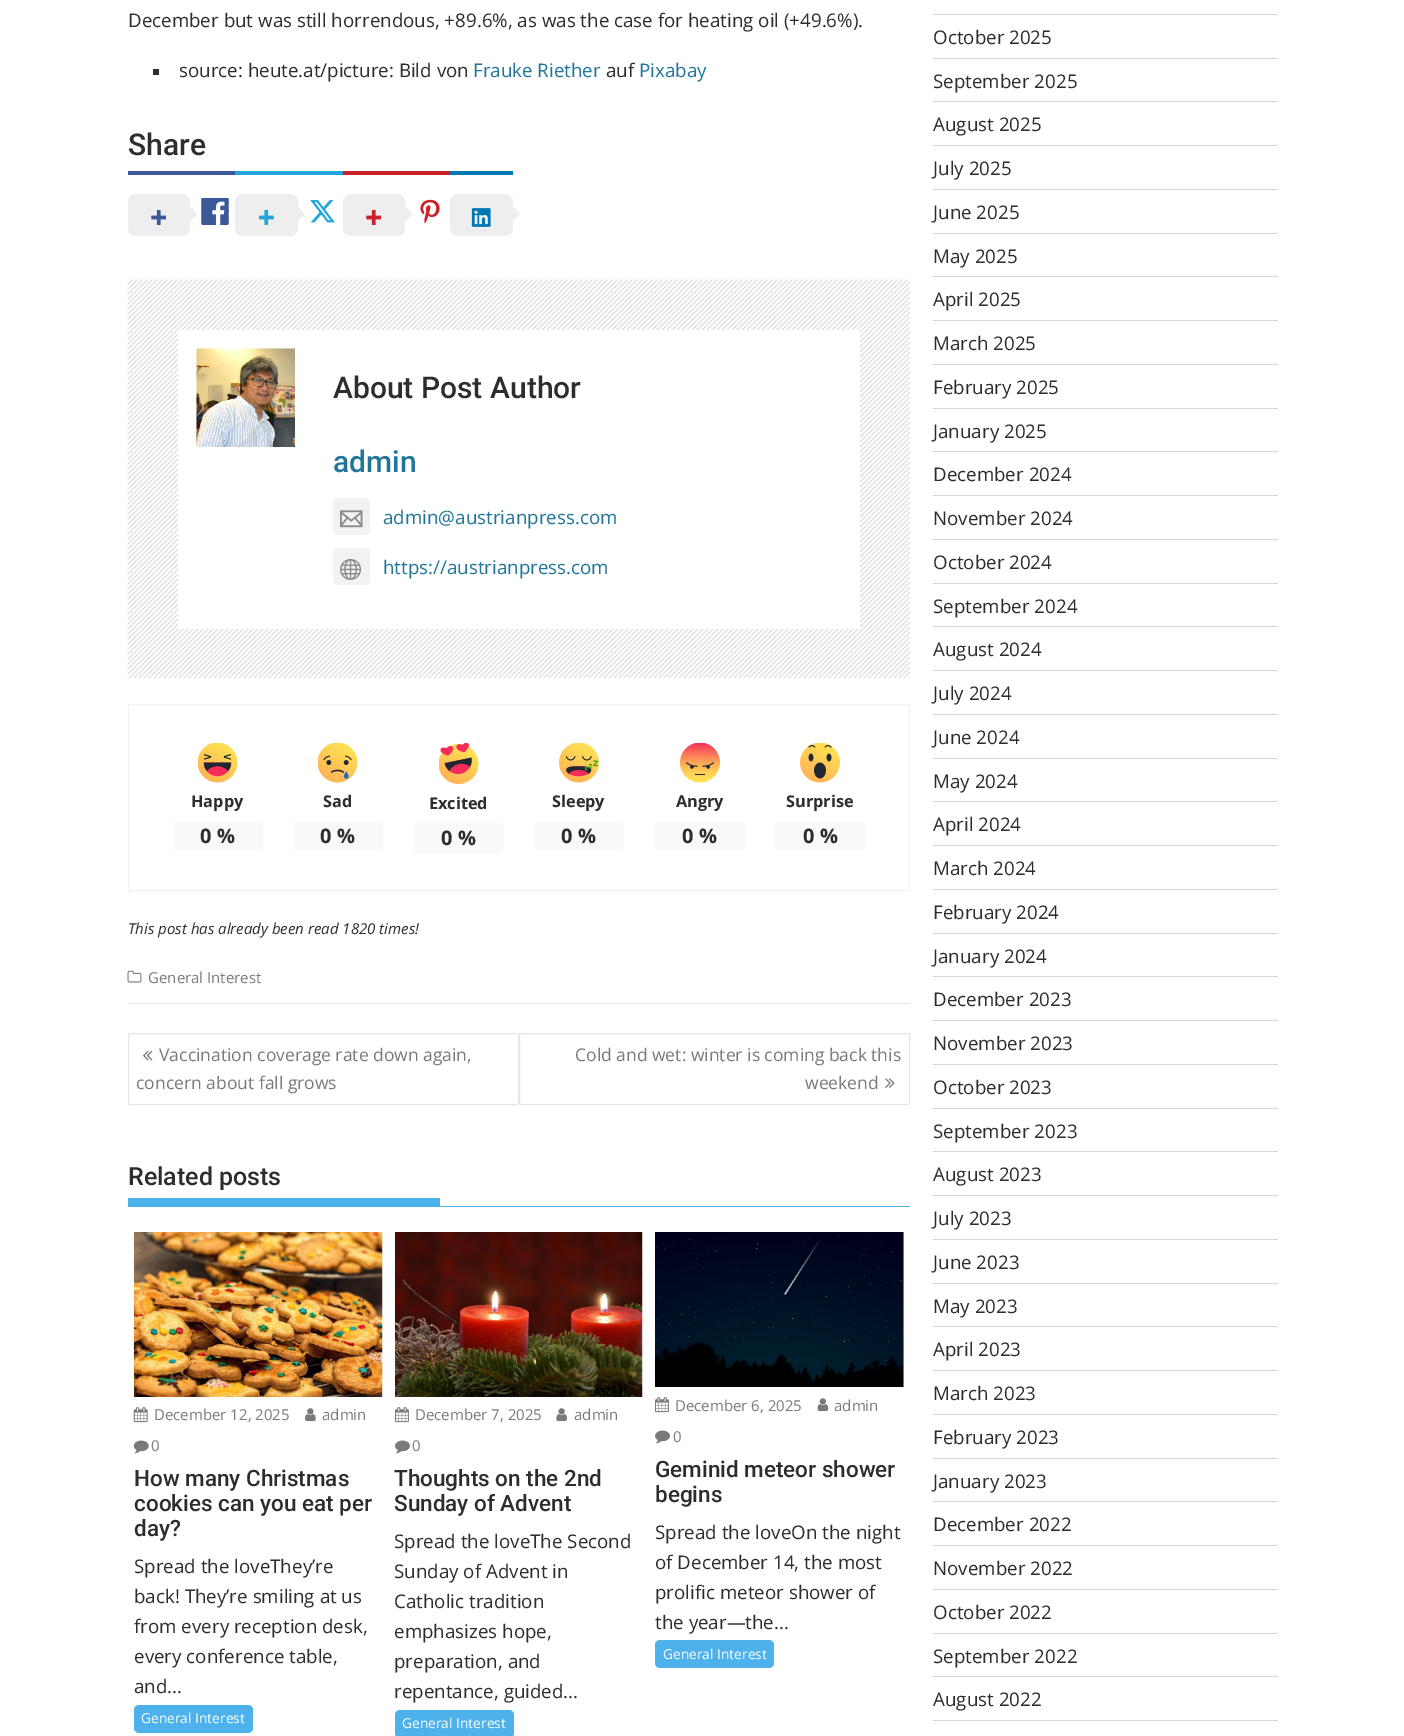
%!PS
<< /PageSize [1404 1736] >> setpagedevice
/rgb { 3 { 255 div 3 1 roll } repeat setrgbcolor } def
/font { [ exch dup neg 0 0 3 -1 roll 0 0 ] selectfont } def
/text { moveto show } def
/roundrect { 5 dict begin { /r /h /w /y /x } { exch def } forall
  x r add y moveto x w add y 2 copy h add r arct x w add y h add x 1 index r arct
  x y h add x y r arct x y 2 copy exch w add exch r arct closepath end } def
/picture { 5 dict begin { /h /w /y /x /name } { exch def } forall
  gsave x y translate w h scale
  w h 8 [w 0 0 h 0 0] name (r) file false 3 colorimage grestore end } def
0 1736 translate 1 -1 scale
4 setmiterlimit
255 255 255 rgb
0 0 1404 1736 rectfill
229 229 229 rgb
128 1003 782 1 rectfill
45 45 45 rgb
153 69 6 6 rectfill
59 89 152 rgb
128 171 107 4 rectfill
238 238 238 rgb
128 194 62 42 8 roundrect fill
(img_01.rgb) 151 210 15 15 picture
190 221 moveto 0 -15 rlineto 7.5 8 rlineto closepath fill
(img_02.rgb) 201 198 28 27 picture
36 165 219 rgb
235 171 108 4 rectfill
238 238 238 rgb
235 194 63 42 8 roundrect fill
(img_03.rgb) 259 210 15 15 picture
297.5 221 moveto 0 -15 rlineto 7.5 8 rlineto closepath fill
(img_04.rgb) 310 200 25 23 picture
202 33 40 rgb
343 171 107 4 rectfill
238 238 238 rgb
343 194 62 42 8 roundrect fill
(img_05.rgb) 366 210 15 15 picture
405 221 moveto 0 -15 rlineto 7.5 8 rlineto closepath fill
(img_06.rgb) 420 199 20 25 picture
0 119 181 rgb
450 171 63 4 rectfill
238 238 238 rgb
450 194 63 42 8 roundrect fill
(img_07.rgb) 471 208 20 19 picture
512.5 221 moveto 0 -15 rlineto 7.5 8 rlineto closepath fill
(img_08.rgb) 127 279 783 400 picture
255 255 255 rgb
178 330 682 299 rectfill
(img_09.rgb) 196 348 99 99 picture
242 242 242 rgb
333 498 37 37 5 roundrect fill
(img_10.rgb) 340 510 23 18 picture
333 548 37 37 5 roundrect fill
(img_11.rgb) 340 558 22 22 picture
128.5 704.5 781 186 rectstroke
(img_12.rgb) 198 743 40 40 picture
249 249 249 rgb
173 821 90 30 5 roundrect fill
(img_13.rgb) 318 743 40 40 picture
293 821 90 30 5 roundrect fill
(img_14.rgb) 439 743 40 41 picture
414 823 90 30 5 roundrect fill
(img_15.rgb) 559 743 40 40 picture
534 821 90 30 5 roundrect fill
(img_16.rgb) 680 743 40 40 picture
655 821 90 30 5 roundrect fill
(img_17.rgb) 800 743 40 40 picture
775 821 90 30 5 roundrect fill
(img_18.rgb) 127 970 15 13 picture
229 229 229 rgb
128.5 1033.5 390 71 2 roundrect stroke
(img_19.rgb) 143 1050 10 11 picture
519.5 1033.5 390 71 2 roundrect stroke
(img_20.rgb) 885 1078 10 10 picture
77 178 236 rgb
128 1206 782 1 rectfill
128 1198 312 8 rectfill
(img_21.rgb) 133 1232 250 165 picture
(img_22.rgb) 133 1407 15 16 picture
(img_23.rgb) 305 1408 11 14 picture
(img_24.rgb) 133 1440 16 14 picture
134 1705 119 28 5 roundrect fill
(img_25.rgb) 395 1232 248 165 picture
(img_26.rgb) 395 1407 14 16 picture
(img_27.rgb) 556 1408 11 14 picture
(img_28.rgb) 395 1440 15 14 picture
395 1710 119 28 5 roundrect fill
(img_29.rgb) 655 1232 249 155 picture
(img_26.rgb) 655 1397 14 16 picture
(img_30.rgb) 817 1398 12 14 picture
(img_28.rgb) 655 1430 15 14 picture
655 1640 119 28 5 roundrect fill
215 215 215 rgb
933 14 345 1 rectfill
933 58 345 1 rectfill
933 101 345 1 rectfill
933 145 345 1 rectfill
933 189 345 1 rectfill
933 233 345 1 rectfill
933 276 345 1 rectfill
933 320 345 1 rectfill
933 364 345 1 rectfill
933 408 345 1 rectfill
933 451 345 1 rectfill
933 495 345 1 rectfill
933 539 345 1 rectfill
933 583 345 1 rectfill
933 626 345 1 rectfill
933 670 345 1 rectfill
933 714 345 1 rectfill
933 758 345 1 rectfill
933 801 345 1 rectfill
933 845 345 1 rectfill
933 889 345 1 rectfill
933 933 345 1 rectfill
933 976 345 1 rectfill
933 1020 345 1 rectfill
933 1064 345 1 rectfill
933 1108 345 1 rectfill
933 1151 345 1 rectfill
933 1195 345 1 rectfill
933 1239 345 1 rectfill
933 1283 345 1 rectfill
933 1326 345 1 rectfill
933 1370 345 1 rectfill
933 1414 345 1 rectfill
933 1458 345 1 rectfill
933 1501 345 1 rectfill
933 1545 345 1 rectfill
933 1589 345 1 rectfill
933 1633 345 1 rectfill
933 1676 345 1 rectfill
933 1720 345 1 rectfill
/OpenSans-Regular 18.75 font
45 45 45 rgb
(December but was still horrendous, +89.6%, as was the case for heating oil \(+49.6%\).) 128 27 text
(source: heute.at/picture: Bild von) 179 77 text
33 117 155 rgb
(Frauke Riether) 473 77 text
45 45 45 rgb
(auf) 606 77 text
33 117 155 rgb
(Pixabay) 639 77 text
/Roboto-Medium 30 font
45 45 45 rgb
(Share) 128 155 text
(About Post Author) 333 398 text
33 117 155 rgb
(admin) 333 472 text
/OpenSans-Regular 18.75 font
(admin@austrianpress.com) 383 524 text
(https://austrianpress.com) 383 574 text
/OpenSans-Bold 16.25 font
45 45 45 rgb
(Happy) 191 807 text
/OpenSans-Bold 20 font
(0 %) 200 843 text
/OpenSans-Bold 16.25 font
(Sad) 323 807 text
/OpenSans-Bold 20 font
(0 %) 320 843 text
/OpenSans-Bold 16.25 font
(Excited) 429 809 text
/OpenSans-Bold 20 font
(0 %) 441 845 text
/OpenSans-Bold 16.25 font
(Sleepy) 552 807 text
/OpenSans-Bold 20 font
(0 %) 561 843 text
/OpenSans-Bold 16.25 font
(Angry) 676 807 text
/OpenSans-Bold 20 font
(0 %) 682 843 text
/OpenSans-Bold 16.25 font
(Surprise) 786 807 text
/OpenSans-Bold 20 font
(0 %) 803 843 text
/OpenSans-Italic 15 font
(This post has already been read 1820 times!) 128 934 text
/OpenSans-Regular 15 font
122 122 122 rgb
(General Interest) 148 983 text
/OpenSans-Regular 17.5 font
(Vaccination coverage rate down again,) 159 1061 text
(concern about fall grows) 136 1089 text
(Cold and wet: winter is coming back this) 575 1061 text
(weekend) 805 1089 text
/Roboto-Medium 25 font
45 45 45 rgb
(Related posts) 128 1185 text
/OpenSans-Regular 15 font
122 122 122 rgb
(December 12, 2025) 154 1420 text
(admin) 322 1420 text
(0) 151 1451 text
/Roboto-Medium 22.5 font
45 45 45 rgb
(How many Christmas) 134 1486 text
(cookies can you eat per) 134 1511 text
(day?) 134 1536 text
/OpenSans-Regular 18.75 font
(Spread the loveThey’re) 134 1573 text
(back! They’re smiling at us) 134 1603 text
(from every reception desk,) 134 1633 text
(every conference table,) 134 1663 text
(and...) 134 1693 text
/OpenSans-Regular 13.75 font
255 255 255 rgb
(General Interest) 141 1723 text
/OpenSans-Regular 15 font
122 122 122 rgb
(December 7, 2025) 415 1420 text
(admin) 574 1420 text
(0) 412 1451 text
/Roboto-Medium 22.5 font
45 45 45 rgb
(Thoughts on the 2nd) 394 1486 text
(Sunday of Advent) 394 1511 text
/OpenSans-Regular 18.75 font
(Spread the loveThe Second) 394 1548 text
(Sunday of Advent in) 394 1578 text
(Catholic tradition) 394 1608 text
(emphasizes hope,) 394 1638 text
(preparation, and) 394 1668 text
(repentance, guided...) 394 1698 text
/OpenSans-Regular 13.75 font
255 255 255 rgb
(General Interest) 402 1728 text
/OpenSans-Regular 15 font
122 122 122 rgb
(December 6, 2025) 675 1411 text
(admin) 834 1411 text
(0) 673 1442 text
/Roboto-Medium 22.5 font
45 45 45 rgb
(Geminid meteor shower) 655 1477 text
(begins) 655 1502 text
/OpenSans-Regular 18.75 font
(Spread the loveOn the night) 655 1539 text
(of December 14, the most) 655 1569 text
(prolific meteor shower of) 655 1599 text
(the year—the...) 655 1629 text
/OpenSans-Regular 13.75 font
255 255 255 rgb
(General Interest) 663 1659 text
/OpenSans-Regular 18.75 font
45 45 45 rgb
(October 2025) 933 44 text
(September 2025) 933 88 text
(August 2025) 933 131 text
(July 2025) 933 175 text
(June 2025) 933 219 text
(May 2025) 933 263 text
(April 2025) 933 306 text
(March 2025) 933 350 text
(February 2025) 933 394 text
(January 2025) 933 438 text
(December 2024) 933 481 text
(November 2024) 933 525 text
(October 2024) 933 569 text
(September 2024) 933 613 text
(August 2024) 933 656 text
(July 2024) 933 700 text
(June 2024) 933 744 text
(May 2024) 933 788 text
(April 2024) 933 831 text
(March 2024) 933 875 text
(February 2024) 933 919 text
(January 2024) 933 963 text
(December 2023) 933 1006 text
(November 2023) 933 1050 text
(October 2023) 933 1094 text
(September 2023) 933 1138 text
(August 2023) 933 1181 text
(July 2023) 933 1225 text
(June 2023) 933 1269 text
(May 2023) 933 1313 text
(April 2023) 933 1356 text
(March 2023) 933 1400 text
(February 2023) 933 1444 text
(January 2023) 933 1488 text
(December 2022) 933 1531 text
(November 2022) 933 1575 text
(October 2022) 933 1619 text
(September 2022) 933 1663 text
(August 2022) 933 1706 text
showpage
